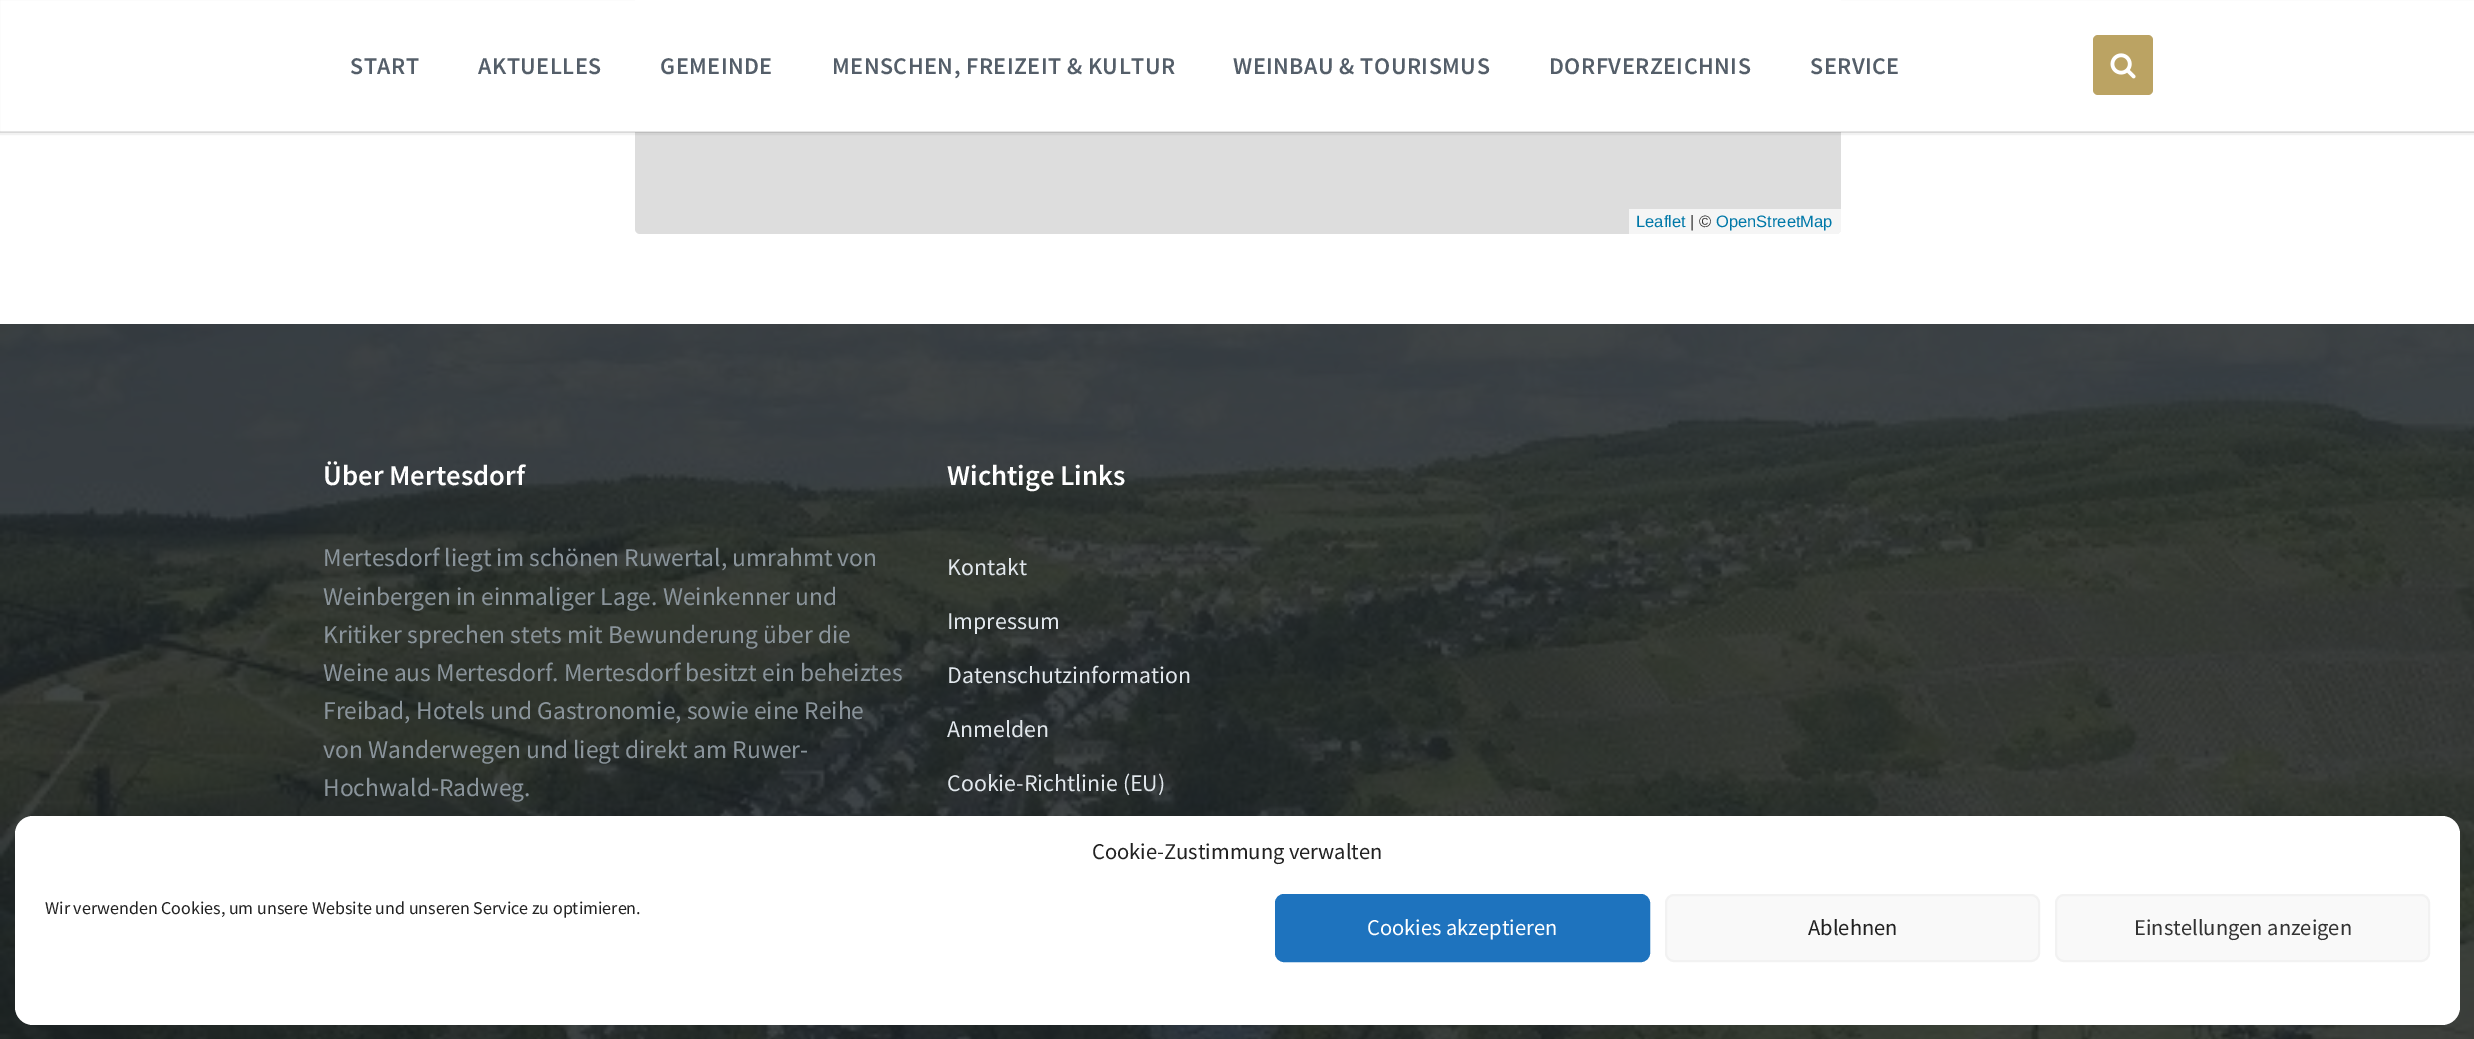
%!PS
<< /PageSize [2474 1039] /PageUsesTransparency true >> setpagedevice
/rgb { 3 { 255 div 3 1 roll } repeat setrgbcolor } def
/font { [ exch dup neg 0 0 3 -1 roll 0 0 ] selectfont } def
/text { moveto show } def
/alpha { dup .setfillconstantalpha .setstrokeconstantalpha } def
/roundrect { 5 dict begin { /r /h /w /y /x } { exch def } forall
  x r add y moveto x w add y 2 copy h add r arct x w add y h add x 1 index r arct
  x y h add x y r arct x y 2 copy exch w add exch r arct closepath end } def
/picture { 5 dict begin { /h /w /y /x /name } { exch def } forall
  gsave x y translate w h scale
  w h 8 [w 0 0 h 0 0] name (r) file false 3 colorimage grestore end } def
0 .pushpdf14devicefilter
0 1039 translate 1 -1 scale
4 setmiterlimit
255 255 255 rgb
0 0 2474 1039 rectfill
221 221 221 rgb
635 -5 1206 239 5 roundrect fill
0.05 alpha
0 0 0 rgb
3 setlinewidth
-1.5 -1.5 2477 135 rectstroke
1 alpha
255 255 255 rgb
635 0 1206 132 rectfill
0.1 alpha
0 0 0 rgb
0 131 2474 2 rectfill
1 alpha
187 163 99 rgb
2093 35 60 60 5 roundrect fill
(img_01.rgb) 2110 53 26 26 picture
0.7 alpha
255 255 255 rgb
1629 209 moveto 212 0 rlineto 0 20 rlineto 0 3 -2 5 -5 5 rcurveto -207 0 rlineto closepath fill
1 alpha
(img_02.rgb) 0 324 2474 715 picture
15 816 2445 209 18 roundrect fill
30 115 190 rgb
1276 895 373 66 8 roundrect gsave fill grestore
2 setlinewidth
stroke
249 249 249 rgb
1666 895 373 66 8 roundrect gsave fill grestore
242 242 242 rgb
stroke
249 249 249 rgb
2056 895 373 66 8 roundrect gsave fill grestore
242 242 242 rgb
stroke
/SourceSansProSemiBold-SemiBold 23.9 font
84 94 105 rgb
350 74 moveto 0.5 0 (START) ashow
478 74 moveto 0.5 0 (AKTUELLES) ashow
660 74 moveto 0.5 0 (GEMEINDE) ashow
832 74 moveto 0.5 0 (MENSCHEN, FREIZEIT & KULTUR) ashow
1233 74 moveto 0.5 0 (WEINBAU & TOURISMUS) ashow
1549 74 moveto 0.5 0 (DORFVERZEICHNIS) ashow
1810 74 moveto 0.5 0 (SERVICE) ashow
/LiberationSans-Regular 16.5 font
0 120 168 rgb
(Leaflet) 1636 227 text
51 51 51 rgb
(| ©) 1690 227 text
0 120 168 rgb
(OpenStreetMap) 1716 227 text
/SourceSansProSemiBold-SemiBold 28.75 font
255 255 255 rgb
(Über Mertesdorf) 323 485 text
/SourceSansPro-Regular 25.5 font
138 148 155 rgb
(Mertesdorf liegt im schönen Ruwertal, umrahmt von) 323 566 text
(Weinbergen in einmaliger Lage. Weinkenner und) 323 605 text
(Kritiker sprechen stets mit Bewunderung über die) 323 643 text
(Weine aus Mertesdorf. Mertesdorf besitzt ein beheiztes) 323 681 text
(Freibad, Hotels und Gastronomie, sowie eine Reihe) 323 719 text
(von Wanderwegen und liegt direkt am Ruwer-) 323 758 text
(Hochwald-Radweg.) 323 796 text
/SourceSansProSemiBold-SemiBold 28.75 font
255 255 255 rgb
(Wichtige Links) 947 485 text
/SourceSansPro-Regular 23.9 font
225 231 236 rgb
(Kontakt) 947 575 text
(Impressum) 947 629 text
(Datenschutzinformation) 947 683 text
(Anmelden) 947 737 text
(Cookie-Richtlinie \(EU\)) 947 791 text
/SourceSansPro-Regular 22.5 font
34 34 34 rgb
(Cookie-Zustimmung verwalten) 1092 859 text
/SourceSansPro-Regular 18 font
(Wir verwenden Cookies, um unsere Website und unseren Service zu optimieren.) 45 914 text
/SourceSansPro-Regular 22.5 font
255 255 255 rgb
(Cookies akzeptieren) 1367 935 text
34 34 34 rgb
(Ablehnen) 1808 935 text
51 51 51 rgb
(Einstellungen anzeigen) 2134 935 text
.poppdf14devicefilter showpage
